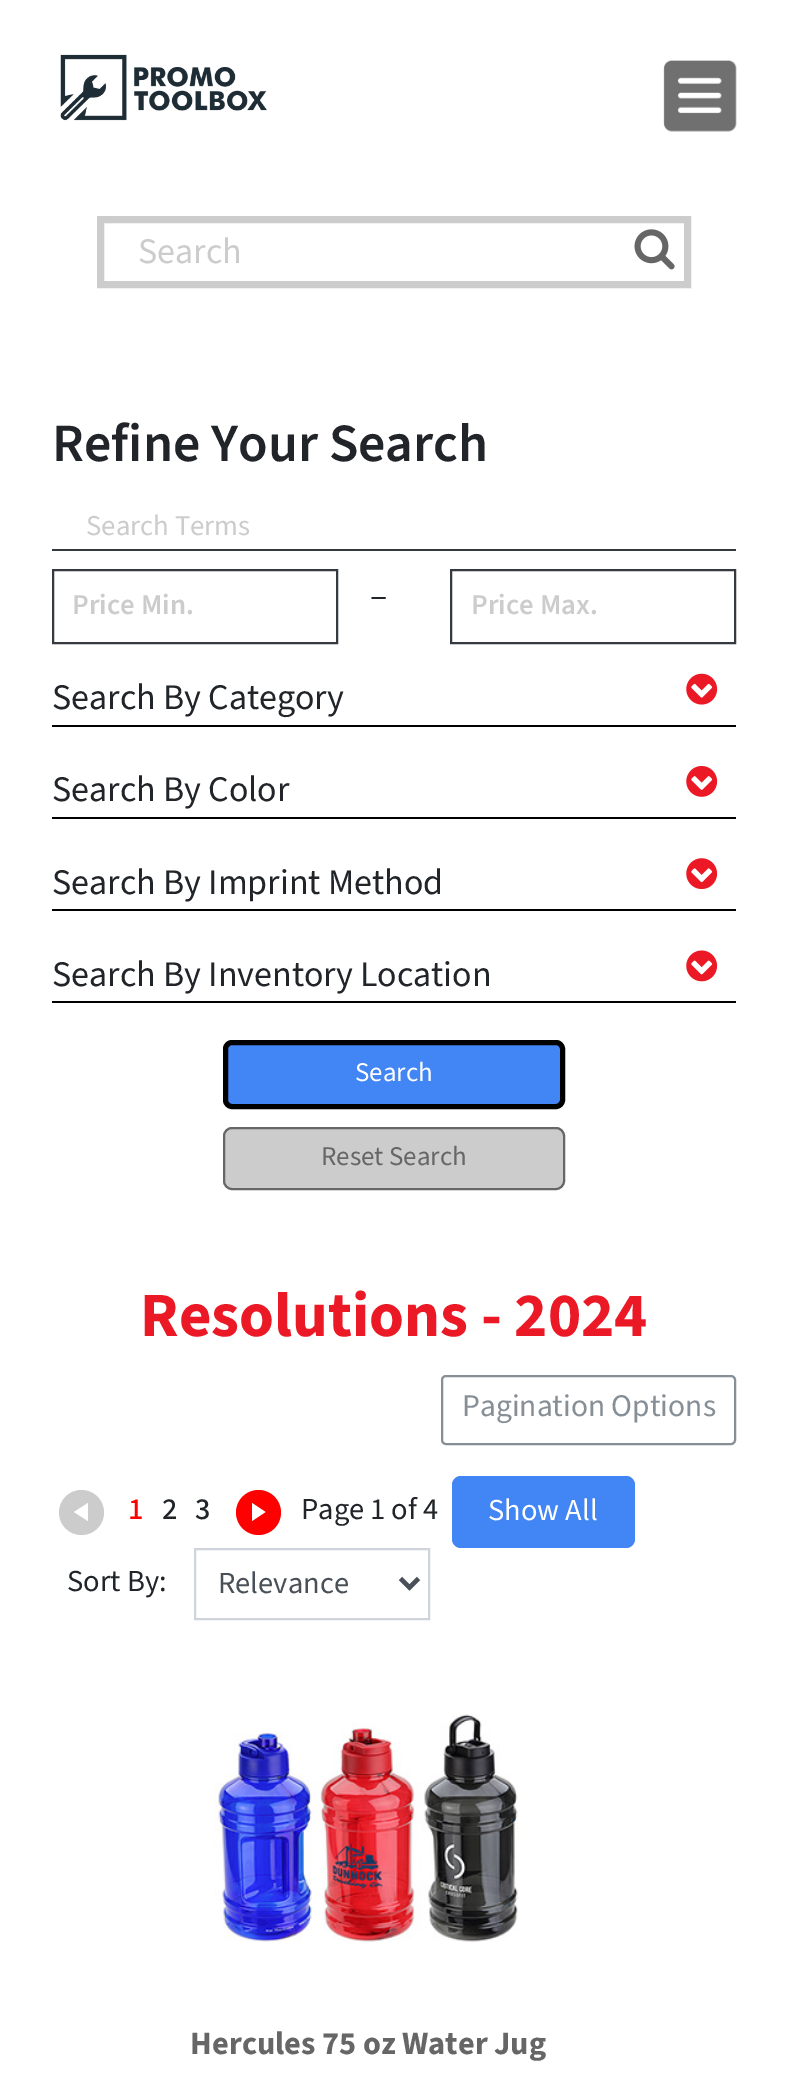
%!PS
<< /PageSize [787 2090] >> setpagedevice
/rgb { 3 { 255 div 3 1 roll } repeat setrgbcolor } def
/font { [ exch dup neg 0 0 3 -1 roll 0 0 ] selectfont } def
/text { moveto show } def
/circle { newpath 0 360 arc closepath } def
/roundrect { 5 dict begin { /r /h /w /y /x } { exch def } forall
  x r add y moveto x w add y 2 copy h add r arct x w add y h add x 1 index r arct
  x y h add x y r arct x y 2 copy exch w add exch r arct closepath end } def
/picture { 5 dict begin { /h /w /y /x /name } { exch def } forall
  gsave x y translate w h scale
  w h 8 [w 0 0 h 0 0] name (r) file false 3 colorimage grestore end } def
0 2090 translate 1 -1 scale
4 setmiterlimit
255 255 255 rgb
0 0 787 2090 rectfill
(img_01.rgb) 60 54 207 67 picture
(img_02.rgb) 663 60 74 72 picture
(img_03.rgb) 634 229 41 41 picture
204 204 204 rgb
7 setlinewidth
100.5 219.5 587 65 rectstroke
52 58 64 rgb
52 549 684 2 rectfill
2 setlinewidth
53 570 284 73 rectstroke
451 570 284 73 rectstroke
0 0 0 rgb
52 725 684 2 rectfill
(img_04.rgb) 686 673 32 32 picture
52 817 684 2 rectfill
(img_05.rgb) 686 766 32 31 picture
52 909 684 2 rectfill
(img_06.rgb) 686 858 32 32 picture
52 1001 684 2 rectfill
(img_07.rgb) 686 950 32 32 picture
66 133 244 rgb
225.5 1042.5 337 64 6.5 roundrect gsave fill grestore
0 0 0 rgb
5 setlinewidth
stroke
204 204 204 rgb
224 1128 340 61 8 roundrect gsave fill grestore
102 102 102 rgb
2 setlinewidth
stroke
134 142 150 rgb
442 1376 293 68 4 roundrect stroke
204 204 204 rgb
81.5 1512.5 22.5 circle fill
255 255 255 rgb
88 1503 moveto 0 18 rlineto -14 -9 rlineto closepath fill
255 0 0 rgb
258.5 1512.5 22.5 circle fill
255 255 255 rgb
252 1521 moveto 0 -18 rlineto 13.5 9 rlineto closepath fill
66 133 244 rgb
452 1476 183 72 9 roundrect fill
206 212 218 rgb
195 1549 234 70 rectstroke
73 80 87 rgb
4.5 setlinewidth
400.5 1578.5 moveto 9 9 rlineto 9 -9 rlineto stroke
(img_08.rgb) 214 1714 304 228 picture
/SourceSans3-Regular 36 font
204 204 204 rgb
(Search) 138 263 text
/SourceSans3-SemiBold 54 font
33 37 41 rgb
(Refine Your Search) 52 461 text
/SourceSans3-Regular 28.75 font
204 204 204 rgb
(Search Terms) 86 535 text
/SourceSans3-SemiBold 28.75 font
(Price Min.) 72 614 text
/SourceSans3-Regular 36 font
33 37 41 rgb
(–) 370 607 text
/SourceSans3-SemiBold 28.75 font
204 204 204 rgb
(Price Max.) 471 614 text
/SourceSans3-Regular 36 font
33 37 41 rgb
(Search By Category) 52 709 text
(Search By Color) 52 801 text
(Search By Imprint Method) 52 894 text
(Search By Inventory Location) 52 986 text
/SourceSans3-Regular 27 font
255 255 255 rgb
(Search) 355 1081 text
102 102 102 rgb
(Reset Search) 321 1165 text
/SourceSans3-Bold 63 font
235 25 38 rgb
(Resolutions - 2024) 140 1336 text
/SourceSans3-Regular 31.5 font
134 142 150 rgb
(Pagination Options) 462 1416 text
/SourceSans3-Medium 30.5 font
255 0 0 rgb
(1) 128 1519 text
33 37 41 rgb
(2) 162 1519 text
(3) 195 1519 text
/SourceSans3-Regular 30.5 font
(Page 1 of 4) 301 1519 text
255 255 255 rgb
(Show All) 488 1520 text
33 37 41 rgb
(Sort By:) 67 1591 text
73 80 87 rgb
(Relevance) 218 1593 text
/SourceSans3-Bold 32.4 font
102 102 102 rgb
(Hercules 75 oz Water Jug) 190 2054 text
showpage
